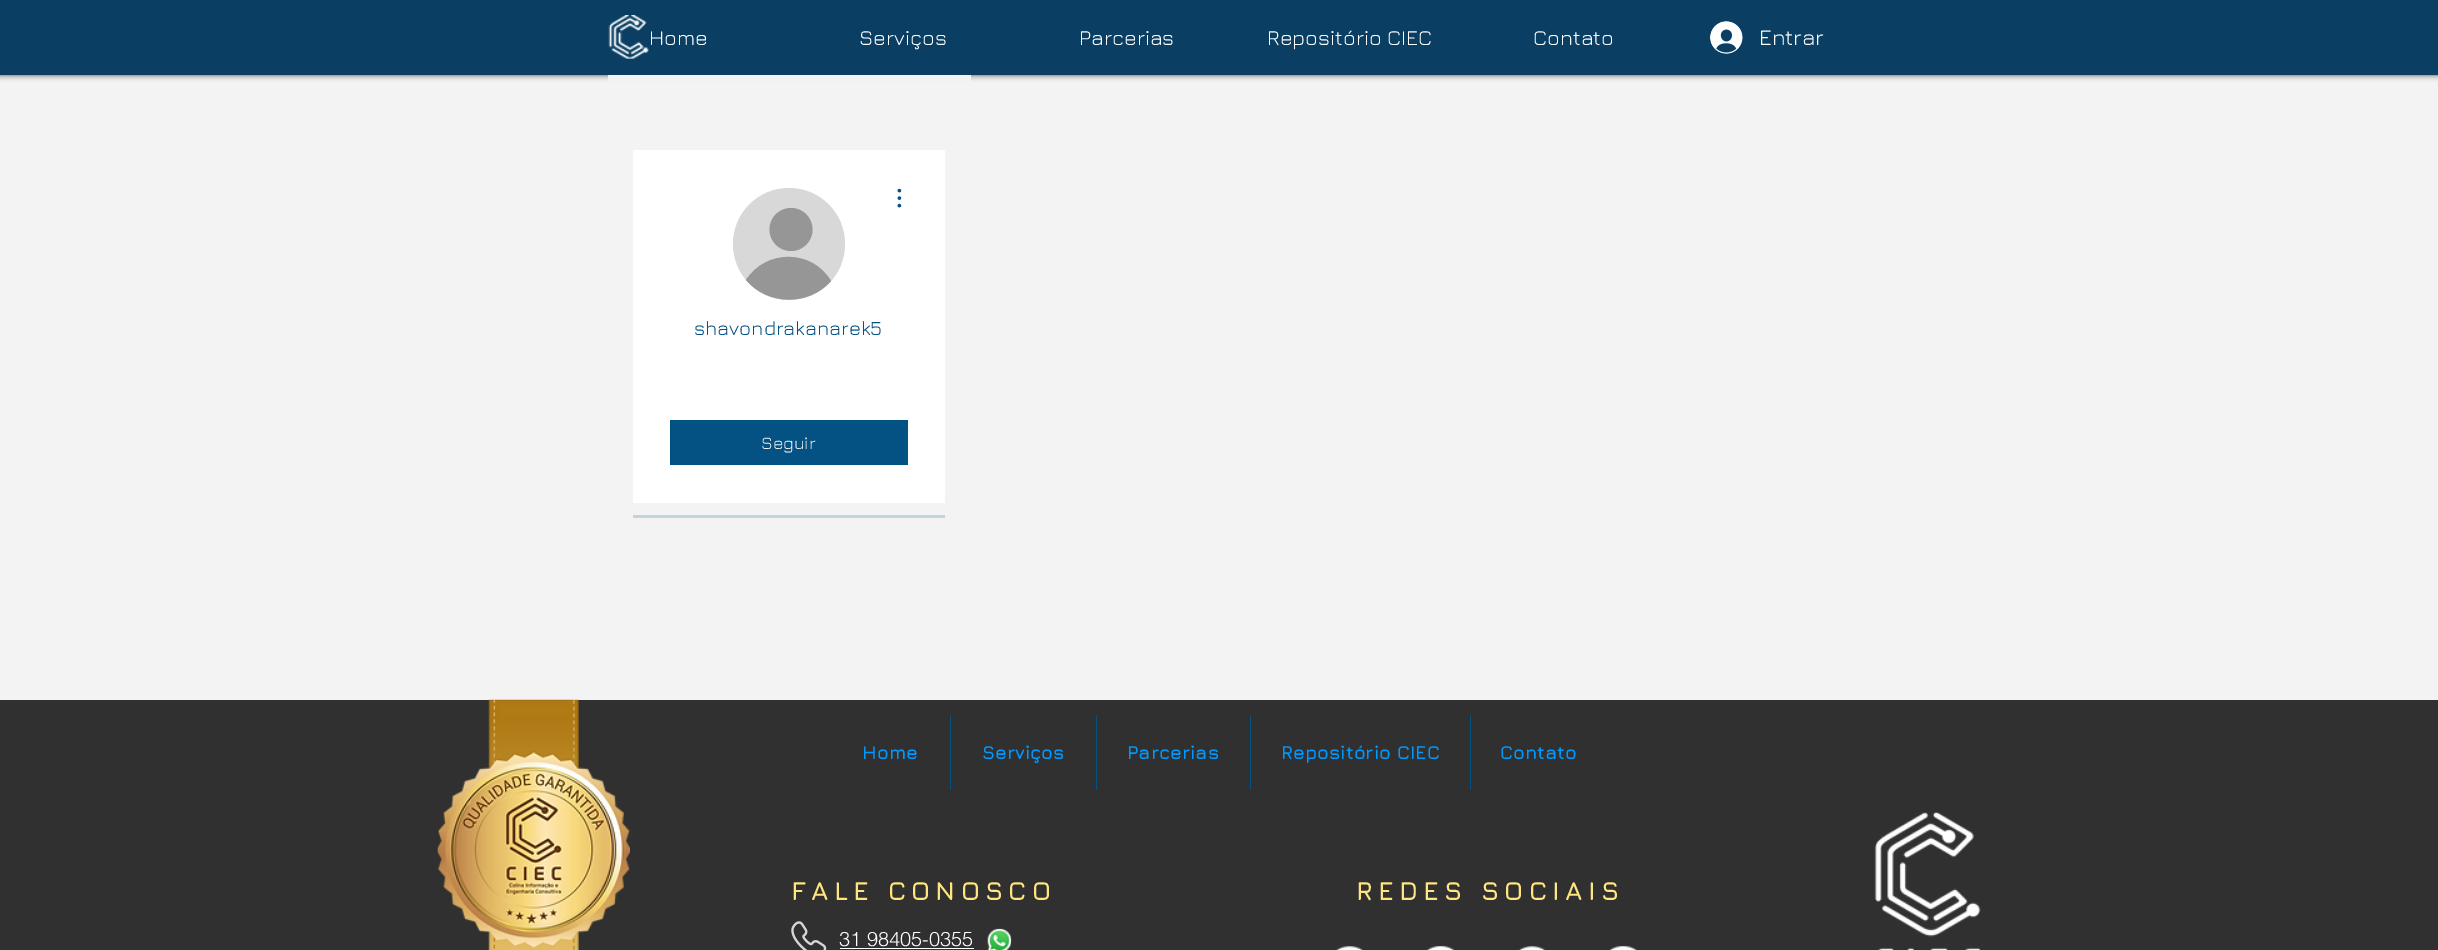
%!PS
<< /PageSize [2438 950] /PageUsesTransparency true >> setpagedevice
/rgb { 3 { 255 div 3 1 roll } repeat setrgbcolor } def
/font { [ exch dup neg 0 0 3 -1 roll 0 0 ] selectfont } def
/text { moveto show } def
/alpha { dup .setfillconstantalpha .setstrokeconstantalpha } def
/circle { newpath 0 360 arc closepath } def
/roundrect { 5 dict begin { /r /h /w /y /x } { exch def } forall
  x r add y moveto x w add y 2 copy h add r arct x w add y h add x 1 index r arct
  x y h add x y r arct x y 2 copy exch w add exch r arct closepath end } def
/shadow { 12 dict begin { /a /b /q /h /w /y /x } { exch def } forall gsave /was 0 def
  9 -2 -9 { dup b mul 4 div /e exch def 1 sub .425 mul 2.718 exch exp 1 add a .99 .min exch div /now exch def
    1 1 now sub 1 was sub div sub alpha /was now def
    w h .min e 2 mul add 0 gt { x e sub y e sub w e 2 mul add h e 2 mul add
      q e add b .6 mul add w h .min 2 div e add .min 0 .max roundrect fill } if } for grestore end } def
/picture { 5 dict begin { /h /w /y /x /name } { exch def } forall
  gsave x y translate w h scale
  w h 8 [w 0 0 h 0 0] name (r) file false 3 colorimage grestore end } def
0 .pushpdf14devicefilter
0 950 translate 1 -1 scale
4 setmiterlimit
243 243 243 rgb
0 0 2438 950 rectfill
0 0 0 rgb
0 0 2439 75 0 3 0.7 shadow
10 63 99 rgb
0 0 2438 75 rectfill
(img_01.rgb) 608 15 41 44 picture
(img_02.rgb) 1710 21 33 33 picture
243 243 243 rgb
608 75 363 6 rectfill
255 255 255 rgb
633 150 312 353 rectfill
216 216 216 rgb
789 244 56 circle fill
150 150 150 rgb
791 229.5 21.5 circle fill
831 281 moveto -22 25 -63 25 -85 -1 rcurveto 20 -31 66 -31 85 1 rcurveto closepath fill
(img_03.rgb) 897 188 5 20 picture
4 81 132 rgb
670 420 238 45 rectfill
195 211 221 rgb
633 515 312 3 rectfill
48 48 48 rgb
0 700 2438 250 rectfill
(img_04.rgb) 437 698 193 252 picture
4 81 132 rgb
950 715 1 75 rectfill
1096 715 1 75 rectfill
1250 715 1 75 rectfill
1470 715 1 75 rectfill
(img_05.rgb) 791 921 36 29 picture
255 255 255 rgb
840 948 134 1 rectfill
(img_06.rgb) 987 928 25 22 picture
(img_07.rgb) 1336 946 27 4 picture
(img_08.rgb) 1426 946 29 4 picture
(img_09.rgb) 1518 946 28 4 picture
(img_10.rgb) 1609 946 28 4 picture
(img_11.rgb) 1874 812 107 138 picture
/Jura-Regular 21.25 font
(Home) 649 45 text
(Serviços) 859 45 text
(Parcerias) 1079 45 text
(Repositório CIEC) 1267 45 text
(Contato) 1533 45 text
/Jura-Regular 22.5 font
(Entrar) 1759 45 text
/Jura-Regular 20 font
4 81 132 rgb
(shavondrakanarek5) 694 335 text
/Jura-Regular 17.5 font
243 243 243 rgb
(Seguir) 761 449 text
/Jura-Bold 18.75 font
0 153 255 rgb
(Home) 862 759 text
(Serviços) 982 759 text
(Parcerias) 1127 759 text
(Repositório CIEC) 1281 759 text
(Contato) 1500 759 text
/Jura-Bold 26.25 font
255 229 127 rgb
791 900 moveto 5.25 0 (FALE CONOSCO) ashow
/helvetica-Light 20 font
255 255 255 rgb
(31 98405-0355) 839 946 text
/Jura-Bold 26.25 font
255 229 127 rgb
1356 900 moveto 5.25 0 (REDES SOCIAIS) ashow
.poppdf14devicefilter showpage
